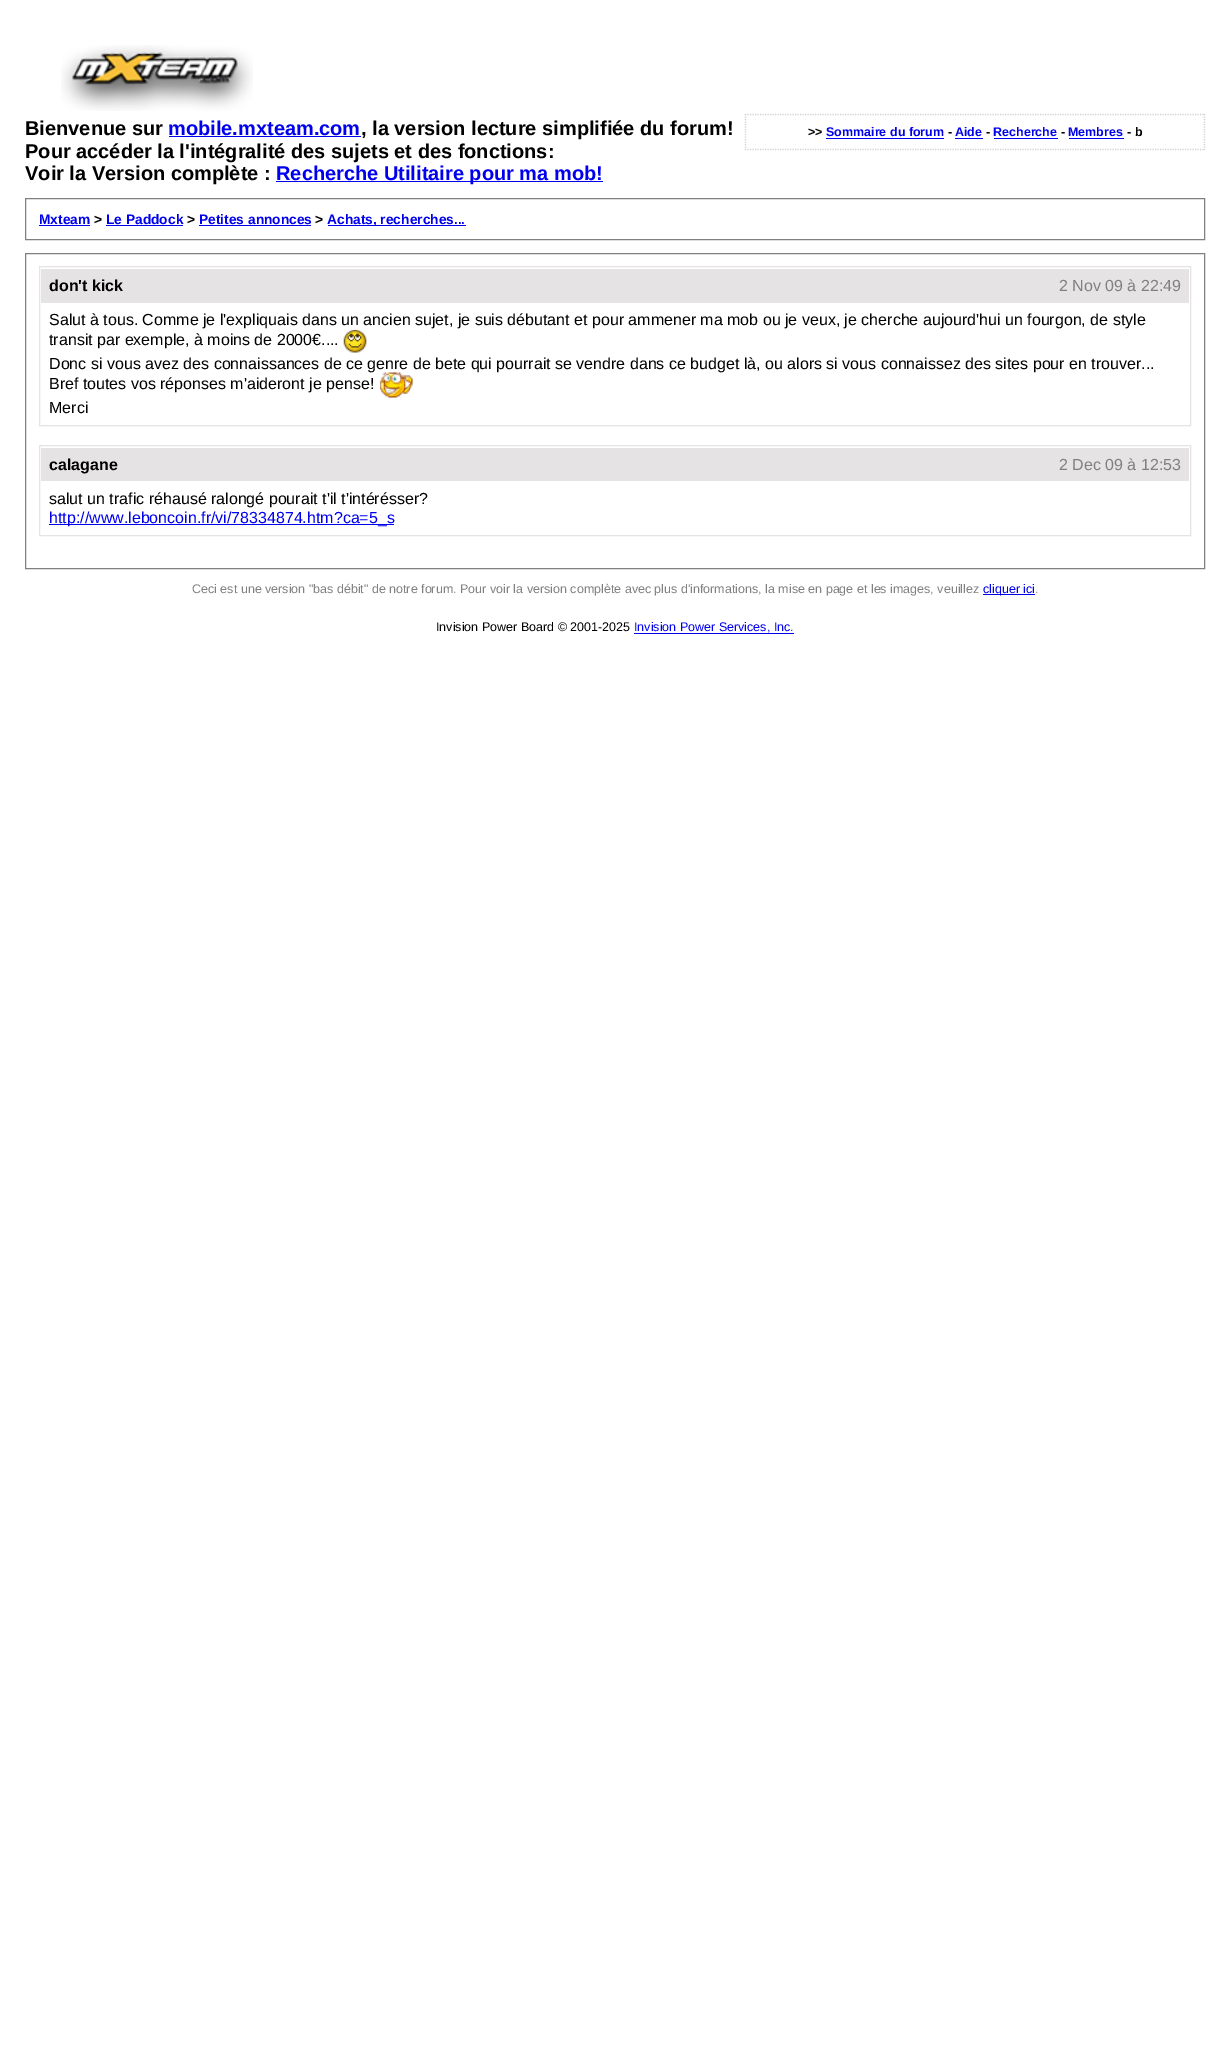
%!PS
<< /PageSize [1229 2045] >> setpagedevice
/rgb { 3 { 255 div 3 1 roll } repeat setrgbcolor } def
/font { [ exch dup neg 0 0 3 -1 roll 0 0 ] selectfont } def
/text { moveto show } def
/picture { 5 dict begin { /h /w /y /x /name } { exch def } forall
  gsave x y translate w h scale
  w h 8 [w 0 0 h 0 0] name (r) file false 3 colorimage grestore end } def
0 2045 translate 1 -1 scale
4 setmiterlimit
255 255 255 rgb
0 0 1229 2045 rectfill
(img_01.rgb) 61 45 192 66 picture
0 0 238 rgb
169 136 192 1 rectfill
276 181 327 1 rectfill
211 211 211 rgb
1.2 setlinewidth
[1.25 1.25] 0 setdash
745 114.5 moveto 460 0 rlineto stroke
1204.5 114 moveto 0 36 rlineto stroke
745 149.5 moveto 460 0 rlineto stroke
745.5 114 moveto 0 36 rlineto stroke
0 0 238 rgb
826 138 118 1 rectfill
955 138 28 1 rectfill
994 138 64 1 rectfill
1069 138 55 1 rectfill
128 128 128 rgb
1 setlinewidth
[] 0 setdash
25.5 198.5 1179 41 rectstroke
0 0 238 rgb
39 225 51 1 rectfill
106 225 77 1 rectfill
199 225 112 1 rectfill
328 225 138 1 rectfill
128 128 128 rgb
25.5 253.5 1179 315 rectstroke
230 227 228 rgb
39.5 266.5 1151 159 rectstroke
41 269 1148 34 rectfill
(img_02.rgb) 343 329 24 24 picture
39.5 445.5 1151 90 rectstroke
41 448 1148 33 rectfill
0 0 238 rgb
49 524 345 1 rectfill
983 594 52 1 rectfill
634 633 160 1 rectfill
/LiberationSans-Bold 20 font
0 0 0 rgb
(Bienvenue sur) 25 135 text
0 0 238 rgb
(mobile.mxteam.com) 168 135 text
0 0 0 rgb
(, la version lecture simplifiée du forum!) 361 135 text
(Pour accéder la l'intégralité des sujets et des fonctions:) 25 158 text
(Voir la Version complète :) 25 180 text
0 0 238 rgb
(Recherche Utilitaire pour ma mob!) 276 180 text
/LiberationSans-Bold 12.5 font
0 0 0 rgb
(>>) 808 136 text
0 0 238 rgb
(Sommaire du forum) 826 136 text
0 0 0 rgb
(-) 948 136 text
0 0 238 rgb
(Aide) 955 136 text
0 0 0 rgb
(-) 986 136 text
0 0 238 rgb
(Recherche) 993 136 text
0 0 0 rgb
(-) 1061 136 text
0 0 238 rgb
(Membres) 1068 136 text
0 0 0 rgb
(- b) 1127 136 text
/LiberationSans-Bold 13.75 font
0 0 238 rgb
(Mxteam) 39 224 text
0 0 0 rgb
(>) 94 224 text
0 0 238 rgb
(Le Paddock) 106 224 text
0 0 0 rgb
(>) 187 224 text
0 0 238 rgb
(Petites annonces) 199 224 text
0 0 0 rgb
(>) 315 224 text
0 0 238 rgb
(Achats, recherches...) 327 224 text
/LiberationSans-Bold 16 font
0 0 0 rgb
(don't kick) 49 291 text
/LiberationSans-Regular 16 font
128 128 128 rgb
(2 Nov 09 à 22:49) 1059 291 text
0 0 0 rgb
(Salut à tous. Comme je l'expliquais dans un ancien sujet, je suis débutant et pour ammener ma mob ou je veux, je cherche aujourd'hui un fourgon, de style) 49 325 text
(transit par exemple, à moins de 2000€....) 49 345 text
(Donc si vous avez des connaissances de ce genre de bete qui pourrait se vendre dans ce budget là, ou alors si vous connaissez des sites pour en trouver...) 49 369 text
(Bref toutes vos réponses m'aideront je pense!) 49 389 text
(img_03.rgb) 379 372 34 26 picture
(Merci) 49 413 text
/LiberationSans-Bold 16 font
(calagane) 49 470 text
/LiberationSans-Regular 16 font
128 128 128 rgb
(2 Dec 09 à 12:53) 1059 470 text
0 0 0 rgb
(salut un trafic réhausé ralongé pourait t'il t'intérésser?) 49 504 text
0 0 238 rgb
(http://www.leboncoin.fr/vi/78334874.htm?ca=5_s) 49 523 text
/LiberationSans-Regular 12.5 font
128 128 128 rgb
(Ceci est une version "bas débit" de notre forum. Pour voir la version complète avec plus d'informations, la mise en page et les images, veuillez) 192 593 text
0 0 238 rgb
(cliquer ici) 983 593 text
128 128 128 rgb
(.) 1035 593 text
0 0 0 rgb
(Invision Power Board © 2001-2025) 436 631 text
0 0 238 rgb
(Invision Power Services, Inc.) 634 631 text
showpage
